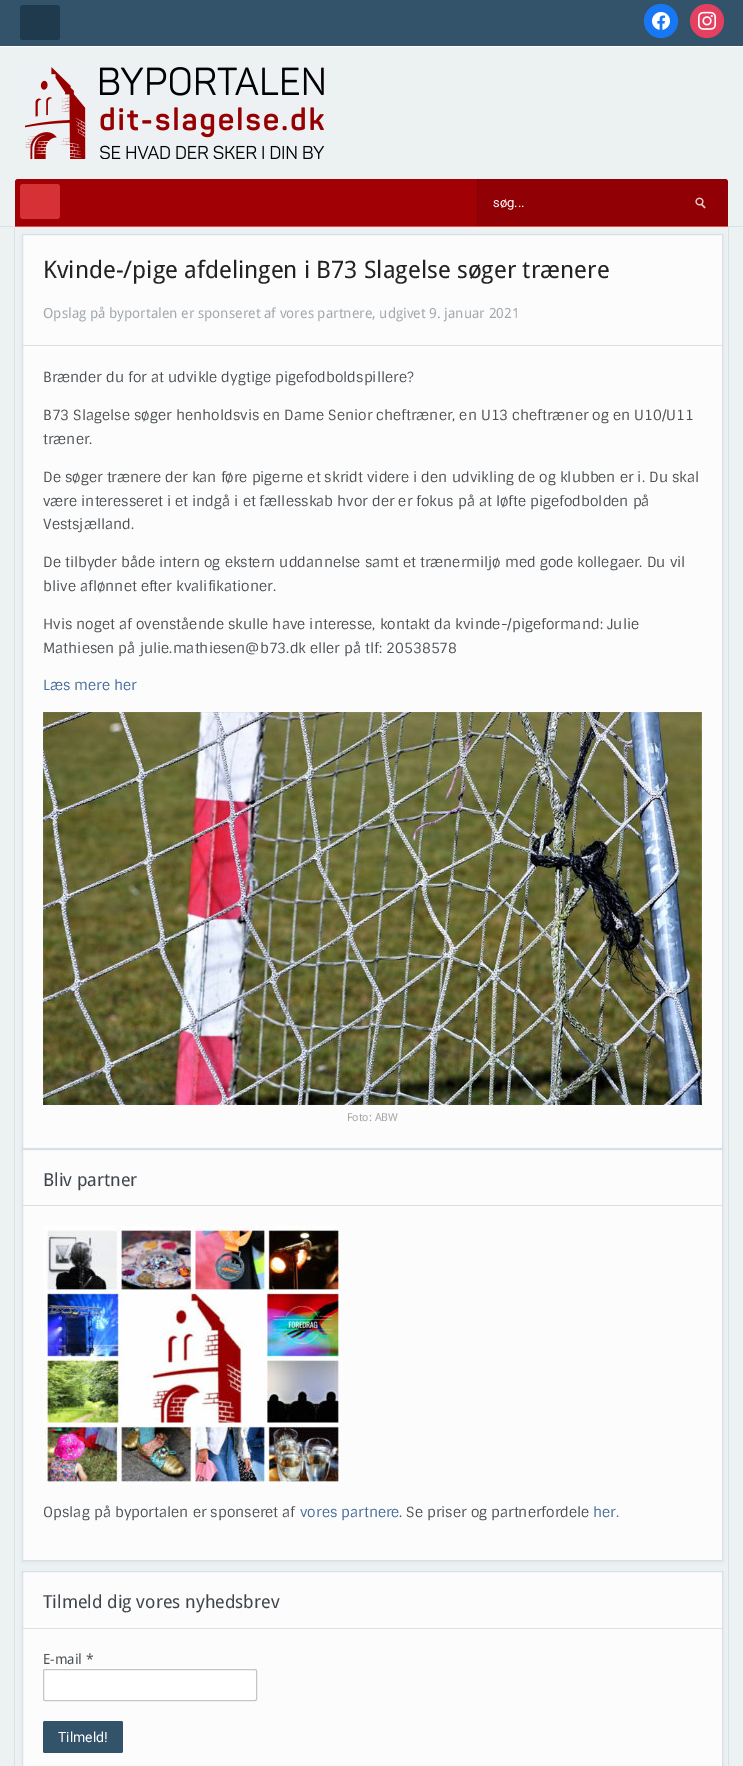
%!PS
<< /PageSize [743 1766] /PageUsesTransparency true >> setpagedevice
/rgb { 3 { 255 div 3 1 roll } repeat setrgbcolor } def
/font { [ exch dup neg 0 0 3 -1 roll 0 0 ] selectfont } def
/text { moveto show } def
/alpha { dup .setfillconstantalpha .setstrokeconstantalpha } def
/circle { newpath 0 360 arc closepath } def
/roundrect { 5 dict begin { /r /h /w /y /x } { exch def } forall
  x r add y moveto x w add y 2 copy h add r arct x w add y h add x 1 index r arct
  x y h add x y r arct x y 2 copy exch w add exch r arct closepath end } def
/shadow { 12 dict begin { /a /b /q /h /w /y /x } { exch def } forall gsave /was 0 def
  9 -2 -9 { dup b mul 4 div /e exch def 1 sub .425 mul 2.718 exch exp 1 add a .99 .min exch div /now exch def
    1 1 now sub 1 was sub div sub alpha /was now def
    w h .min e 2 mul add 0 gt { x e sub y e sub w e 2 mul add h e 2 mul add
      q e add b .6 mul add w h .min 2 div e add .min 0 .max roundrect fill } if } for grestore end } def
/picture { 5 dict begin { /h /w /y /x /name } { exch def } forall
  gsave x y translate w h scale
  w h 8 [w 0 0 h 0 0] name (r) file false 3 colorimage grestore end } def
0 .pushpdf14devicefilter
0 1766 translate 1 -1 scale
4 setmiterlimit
236 242 242 rgb
0 0 743 1766 rectfill
217 224 230 rgb
0 226 743 1 rectfill
51 83 106 rgb
0 0 743 46 rectfill
255 255 255 rgb
0 46 743 1 rectfill
31 57 77 rgb
20 5 40 35 3 roundrect fill
24 119 242 rgb
661 21 17 circle fill
(img_01.rgb) 652 12 18 18 picture
228 64 95 rgb
707 21 17 circle fill
(img_02.rgb) 698 11 18 19 picture
(img_03.rgb) 25 67 299 92 picture
161 0 4 rgb
18 179 moveto 707 0 rlineto 1.5 0 3 1.5 3 3 rcurveto 0 45 rlineto -713 0 rlineto 0 -45 rlineto 0 -1.5 1.5 -3 3 -3 rcurveto closepath fill
233 72 76 rgb
15 226 713 1 rectfill
214 49 53 rgb
20 184 40 35 3 roundrect fill
129 0 3 rgb
477 179 1 47 rectfill
0.1 alpha
0 0 0 rgb
478 179 moveto 247 0 rlineto 1.5 0 3 1.5 3 3 rcurveto 0 44 rlineto -250 0 rlineto closepath fill
1 alpha
(img_04.rgb) 695 197 11 12 picture
217 224 230 rgb
14 227 moveto 715 0 rlineto 0 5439 rlineto 0 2 -1 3 -3 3 rcurveto -709 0 rlineto -2 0 -3 -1 -3 -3 rcurveto closepath 15 227 moveto 713 0 rlineto 0 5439 rlineto 0 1 -1 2 -2 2 rcurveto -709 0 rlineto -1 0 -2 -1 -2 -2 rcurveto closepath eofill
74 95 116 rgb
22 235 701 915 0 1.5 0.08 shadow
252 252 252 rgb
22.5 234.5 moveto 700 0 rlineto 0 914 rlineto -700 0 rlineto closepath gsave fill grestore
217 224 230 rgb
stroke
23 345 699 1 rectfill
(img_05.rgb) 43 712 659 393 picture
74 95 116 rgb
22 1150 701 412 0 1.5 0.08 shadow
252 252 252 rgb
22.5 1149.5 moveto 700 0 rlineto 0 411 rlineto -700 0 rlineto closepath gsave fill grestore
217 224 230 rgb
stroke
23 1205 699 1 rectfill
(img_06.rgb) 43 1226 296 256 picture
74 95 116 rgb
22 1572 701 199 0 1.5 0.08 shadow
252 252 252 rgb
22.5 1571.5 moveto 700 0 rlineto 0 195 rlineto -700 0 rlineto closepath gsave fill grestore
217 224 230 rgb
stroke
23 1628 699 1 rectfill
255 255 255 rgb
43.5 1669.5 213 31 1.5 roundrect gsave fill grestore
198 198 198 rgb
stroke
51 83 106 rgb
43 1721 80 32 2 roundrect fill
/Roboto-Regular 13 font
255 255 255 rgb
(søg...) 493 207 text
/DroidSans-Regular 24 font
34 34 34 rgb
(Kvinde-/pige afdelingen i B73 Slagelse søger trænere) 43 278 text
/DroidSans-Regular 14 font
161 169 175 rgb
(Opslag på byportalen er sponseret af vores partnere, udgivet 9. januar 2021) 43 318 text
/Sintony-Regular 14 font
76 81 85 rgb
(Brænder du for at udvikle dygtige pigefodboldspillere?) 43 382 text
(B73 Slagelse søger henholdsvis en Dame Senior cheftræner, en U13 cheftræner og en U10/U11) 43 420 text
(træner.) 43 444 text
(De søger trænere der kan føre pigerne et skridt videre i den udvikling de og klubben er i. Du skal) 43 482 text
(være interesseret i et indgå i et fællesskab hvor der er fokus på at løfte pigefodbolden på) 43 506 text
(Vestsjælland.) 43 529 text
(De tilbyder både intern og ekstern uddannelse samt et trænermiljø med gode kollegaer. Du vil) 43 567 text
(blive aflønnet efter kvalifikationer.) 43 591 text
(Hvis noget af ovenstående skulle have interesse, kontakt da kvinde-/pigeformand: Julie) 43 629 text
(Mathiesen på julie.mathiesen@b73.dk eller på tlf: 20538578) 43 653 text
68 107 155 rgb
(Læs mere her) 43 690 text
/DroidSans-Regular 11 font
167 163 163 rgb
(Foto: ABW) 347 1121 text
/DroidSans-Regular 18 font
62 69 76 rgb
(Bliv partner) 43 1186 text
/Sintony-Regular 14 font
76 81 85 rgb
(Opslag på byportalen er sponseret af) 43 1517 text
68 107 155 rgb
(vores partnere) 300 1517 text
76 81 85 rgb
(. Se priser og partnerfordele) 399 1517 text
68 107 155 rgb
(her.) 593 1517 text
/DroidSans-Regular 18 font
62 69 76 rgb
(Tilmeld dig vores nyhedsbrev) 43 1608 text
/DroidSans-Regular 14 font
76 81 85 rgb
(E-mail *) 43 1664 text
/Roboto-Regular 14 font
255 255 255 rgb
(Tilmeld!) 58 1742 text
.poppdf14devicefilter showpage
